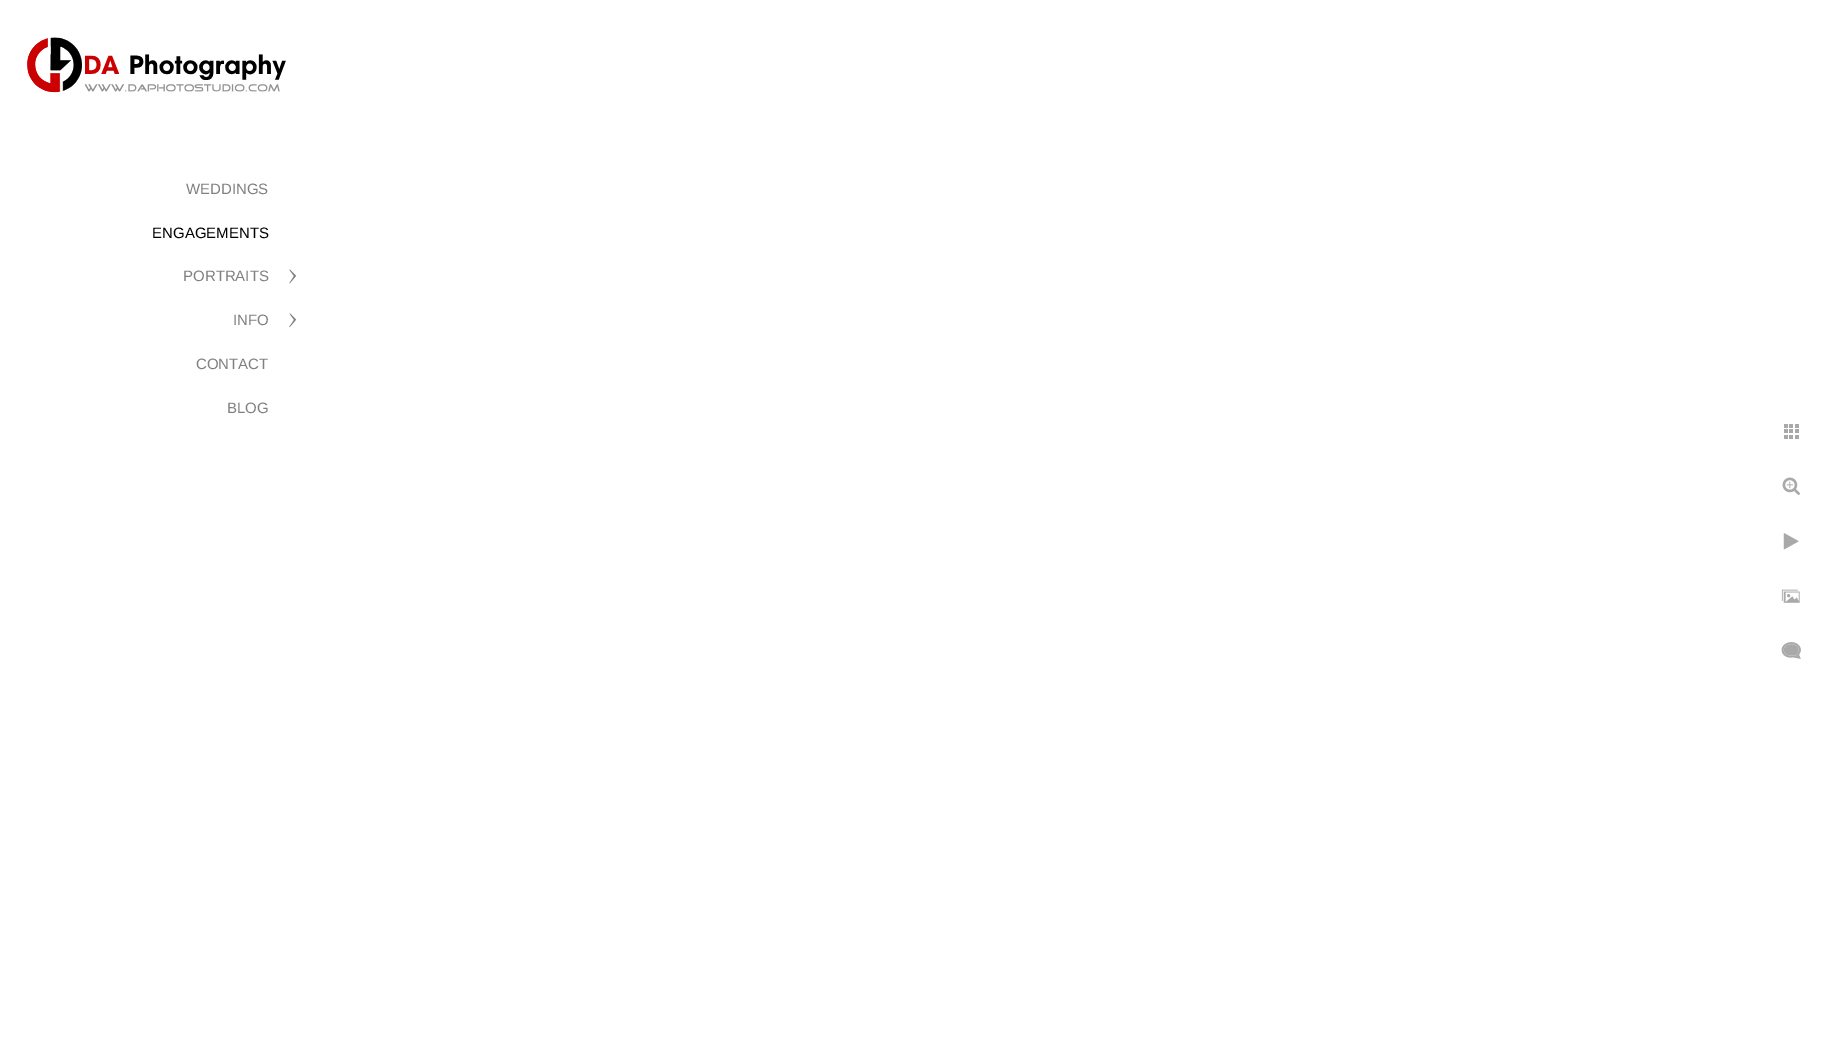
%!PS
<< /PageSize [1825 1056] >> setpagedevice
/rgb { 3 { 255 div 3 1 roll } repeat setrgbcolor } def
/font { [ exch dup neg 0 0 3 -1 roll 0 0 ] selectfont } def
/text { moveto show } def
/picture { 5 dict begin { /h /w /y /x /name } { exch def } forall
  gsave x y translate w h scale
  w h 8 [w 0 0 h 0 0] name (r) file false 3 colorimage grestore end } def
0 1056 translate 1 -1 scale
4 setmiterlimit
255 255 255 rgb
0 0 1825 1056 rectfill
(img_01.rgb) 27 37 259 56 picture
(img_02.rgb) 289 269 7 15 picture
(img_03.rgb) 289 313 7 15 picture
(img_04.rgb) 1784 424 15 15 picture
(img_05.rgb) 1782 477 18 18 picture
(img_06.rgb) 1783 533 16 17 picture
(img_07.rgb) 1781 589 19 14 picture
(img_08.rgb) 1781 642 20 17 picture
/LiberationSans-Regular 15 font
128 128 128 rgb
(WEDDINGS) 186 194 text
0 0 0 rgb
(ENGAGEMENTS) 152 238 text
128 128 128 rgb
(PORTRAITS) 183 281 text
(INFO) 233 325 text
(CONTACT) 196 369 text
(BLOG) 227 413 text
showpage
